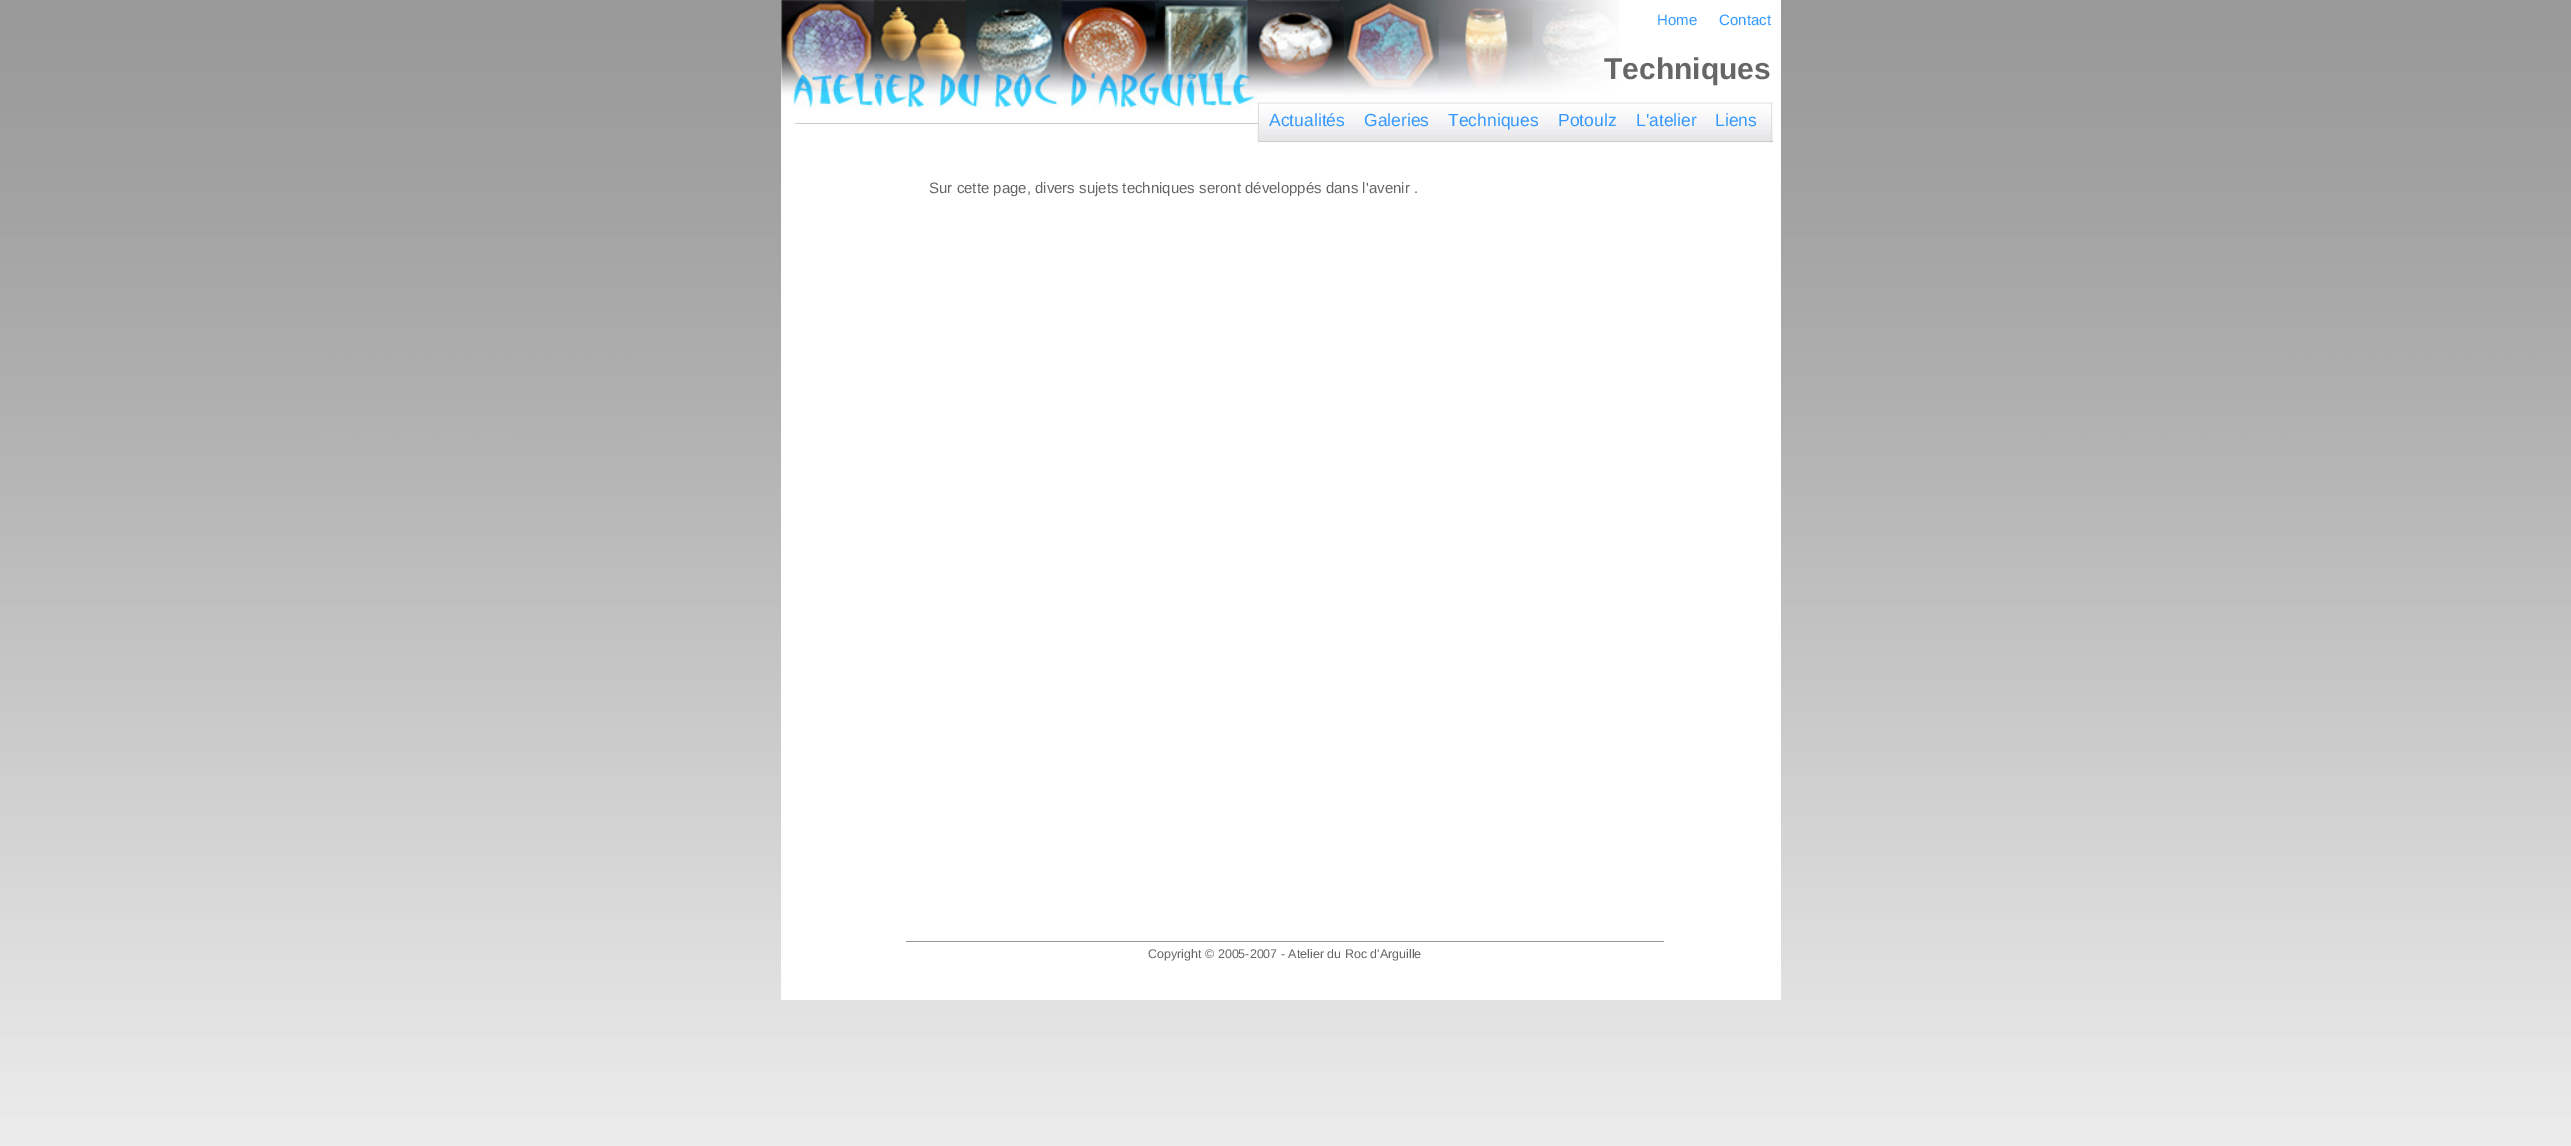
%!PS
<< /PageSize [2571 1146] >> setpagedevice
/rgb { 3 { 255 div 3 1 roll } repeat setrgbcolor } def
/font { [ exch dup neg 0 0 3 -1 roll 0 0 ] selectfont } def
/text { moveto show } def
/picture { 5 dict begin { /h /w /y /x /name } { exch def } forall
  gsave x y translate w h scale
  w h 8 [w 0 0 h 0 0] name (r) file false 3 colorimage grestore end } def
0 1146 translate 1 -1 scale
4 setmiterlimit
255 255 255 rgb
0 0 2571 1146 rectfill
(img_01.rgb) 0 0 2571 1146 picture
781 0 1000 1000 rectfill
(img_02.rgb) 781 0 838 110 picture
(img_03.rgb) 1257 102 516 40 picture
238 238 238 rgb
1772 103 1 1 rectfill
221 221 221 rgb
1771 103 1 40 rectfill
204 204 204 rgb
1258 141 515 1 rectfill
221 221 221 rgb
1258 103 1 40 rectfill
204 204 204 rgb
795 123 463 1 rectfill
153 153 153 rgb
906 941 758 1 rectfill
/LiberationSans-Regular 15 font
51 153 255 rgb
(Home) 1657 25 text
(Contact) 1719 25 text
/LiberationSans-Bold 30 font
102 102 102 rgb
(Techniques) 1604 79 text
/LiberationSans-Regular 17.5 font
51 153 255 rgb
(Actualités) 1269 126 text
(Galeries) 1364 126 text
(Techniques) 1448 126 text
(Potoulz) 1558 126 text
(L'atelier) 1636 126 text
(Liens) 1715 126 text
/LiberationSans-Regular 15 font
102 102 102 rgb
(Sur cette page, divers sujets techniques seront développés dans l'avenir .) 929 193 text
/LiberationSans-Regular 12.5 font
(Copyright © 2005-2007 - Atelier du Roc d'Arguille) 1148 958 text
showpage
